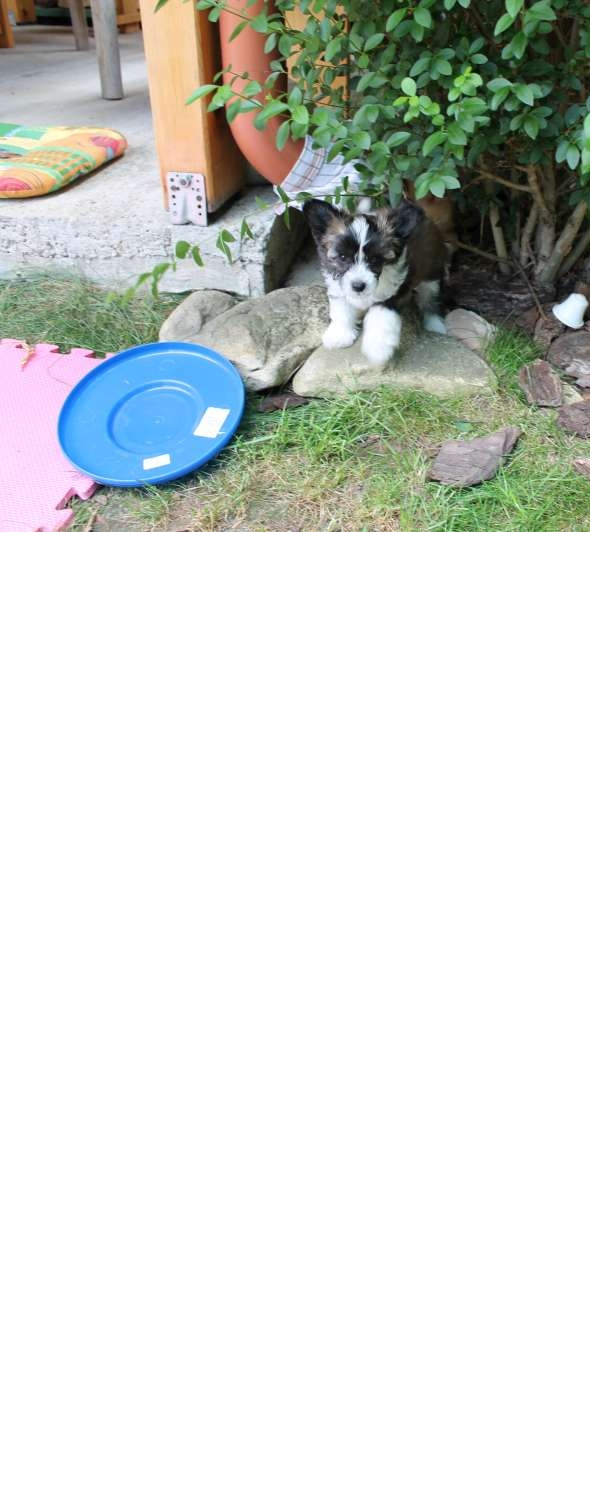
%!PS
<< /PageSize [590 1510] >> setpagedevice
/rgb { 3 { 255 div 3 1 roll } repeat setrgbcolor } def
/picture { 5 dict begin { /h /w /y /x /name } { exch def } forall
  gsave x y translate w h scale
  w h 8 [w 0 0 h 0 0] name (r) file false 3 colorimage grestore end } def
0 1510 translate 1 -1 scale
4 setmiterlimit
255 255 255 rgb
0 0 590 1510 rectfill
(img_01.rgb) 0 0 590 532 picture
showpage
